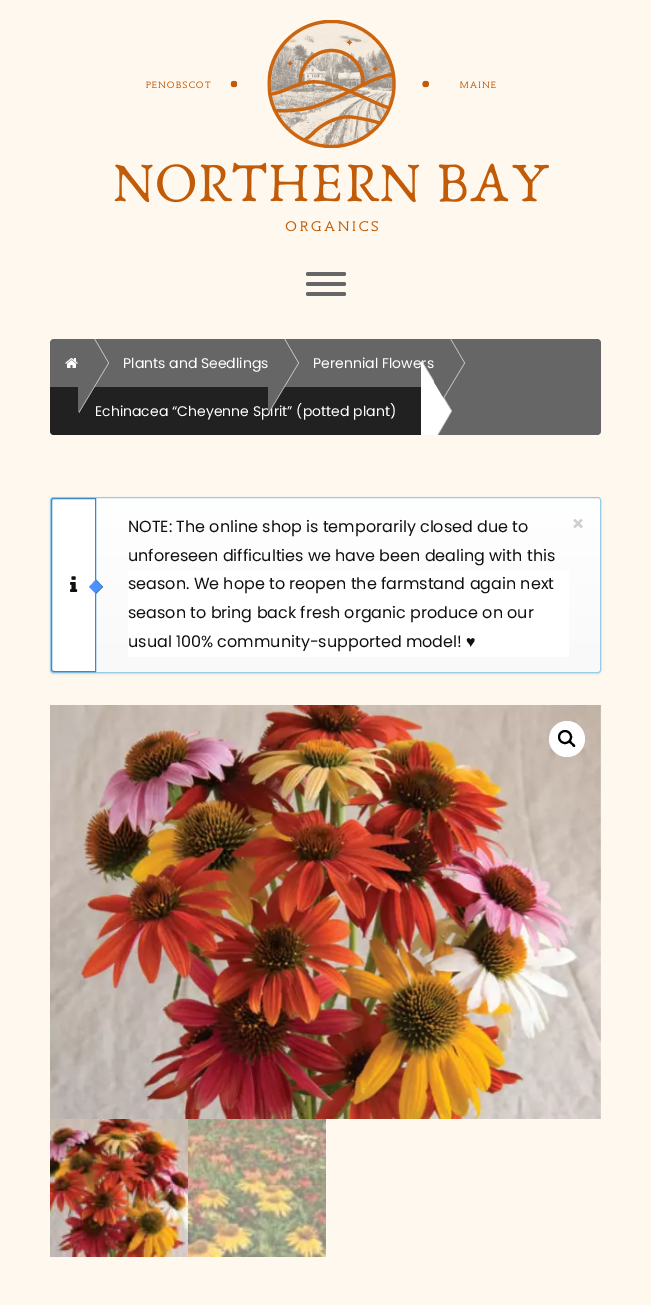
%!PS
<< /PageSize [651 1305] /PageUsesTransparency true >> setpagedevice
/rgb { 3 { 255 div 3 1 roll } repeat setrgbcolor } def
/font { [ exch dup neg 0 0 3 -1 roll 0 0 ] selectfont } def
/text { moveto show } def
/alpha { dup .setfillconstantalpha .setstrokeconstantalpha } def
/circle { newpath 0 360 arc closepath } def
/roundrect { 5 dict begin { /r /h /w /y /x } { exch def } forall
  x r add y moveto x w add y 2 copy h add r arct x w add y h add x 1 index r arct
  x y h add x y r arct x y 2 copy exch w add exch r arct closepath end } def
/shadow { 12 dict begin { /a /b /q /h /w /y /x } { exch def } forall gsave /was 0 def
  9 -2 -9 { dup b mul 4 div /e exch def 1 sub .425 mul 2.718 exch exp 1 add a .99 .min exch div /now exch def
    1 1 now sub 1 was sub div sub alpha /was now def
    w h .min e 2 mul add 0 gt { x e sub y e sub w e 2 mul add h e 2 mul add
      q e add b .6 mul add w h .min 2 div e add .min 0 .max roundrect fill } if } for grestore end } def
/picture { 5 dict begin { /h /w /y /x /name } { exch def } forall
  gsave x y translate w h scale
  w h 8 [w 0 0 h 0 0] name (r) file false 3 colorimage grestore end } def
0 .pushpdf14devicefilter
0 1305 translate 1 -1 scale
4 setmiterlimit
255 248 238 rgb
0 0 651 1305 rectfill
(img_01.rgb) 114 20 436 212 picture
102 102 102 rgb
306 292 40 4 2 roundrect fill
306 272 40 4 2 roundrect fill
306 282 40 4 2 roundrect fill
50 339 551 96 4 roundrect fill
(img_02.rgb) 65 358 13 10 picture
201 201 201 rgb
435 413 moveto 30 -50 rlineto -14 -24 rlineto -16 0 rlineto closepath fill
33 33 33 rgb
50 387 moveto 371 0 rlineto 0 48 rlineto -367 0 rlineto -2 0 -4 -2 -4 -4 rcurveto closepath fill
255 255 255 rgb
50 497 551 176 rectfill
0 0 0 rgb
50 498 551 176 3 1 0.11 shadow
gsave
50 497 551 176 3 roundrect clip newpath
gsave 50 498 moveto 551 0 rlineto 0 174 rlineto -551 0 rlineto closepath clip newpath
<< /ShadingType 2 /ColorSpace /DeviceRGB /Coords [326 498 326 672] /Extend [true true] /Function << /FunctionType 2 /Domain [0 1] /C0 [1 1 1] /C1 [0.976 0.976 0.976] /N 1 >> >> shfill grestore
grestore
152 204 230 rgb
50.5 497.5 550 175 2.5 roundrect stroke
255 255 255 rgb
54 498.5 moveto 41.5 0 rlineto 0 173 rlineto -41.5 0 rlineto -1.5 0 -2.5 -1 -2.5 -2.5 rcurveto 0 -168 rlineto 0 -1.5 1 -2.5 2.5 -2.5 rcurveto closepath gsave fill grestore
58 138 206 rgb
stroke
(img_03.rgb) 70 576 8 16 picture
77 144 253 rgb
96 579.5 moveto 7 7.5 rlineto -7 7 rlineto -7 -7 rlineto closepath fill
58 138 206 rgb
96 579.5 moveto 7 7.5 rlineto -0.5 0.5 rlineto -7 -7 rlineto closepath fill
102.5 586 moveto 0.5 1 rlineto -7 7 rlineto -0.5 -1 rlineto closepath fill
255 255 255 rgb
128 571 441 86 rectfill
(img_04.rgb) 50 705 551 414 picture
567 739 18 circle fill
0 0 0 rgb
2 setlinewidth
565 737 6 circle stroke
569 741 moveto 1.5 -1.5 3 1.5 3.5 2 rcurveto 1 0.5 3.5 2.5 2.5 3.5 rcurveto -1.5 1.5 -3 -1.5 -3.5 -2 rcurveto -1 -0.5 -3.5 -2.5 -2.5 -3.5 rcurveto closepath fill
(img_05.rgb) 50 1119 138 138 picture
(img_06.rgb) 188 1119 138 138 picture
/Poppins-Regular 14 font
255 255 255 rgb
(Plants and Seedlings) 123 368 text
(Perennial Flowers) 313 368 text
(Echinacea “Cheyenne Spirit” \(potted plant\)) 95 416 text
0.9 alpha
212 212 212 rgb
269 413 moveto 30 -50 rlineto -14 -24 rlineto -16 0 rlineto closepath fill
1 alpha
102 102 102 rgb
268 413 moveto 30 -50 rlineto -14 -24 rlineto -16 0 rlineto closepath fill
0.9 alpha
212 212 212 rgb
79 413 moveto 30 -50 rlineto -14 -24 rlineto -16 0 rlineto closepath fill
1 alpha
102 102 102 rgb
78 413 moveto 30 -50 rlineto -14 -24 rlineto -16 0 rlineto closepath fill
0.9 alpha
212 212 212 rgb
438 435 moveto -16 0 rlineto 0 -74 rlineto 30 50 rlineto closepath fill
1 alpha
102 102 102 rgb
434 413 moveto 30 -50 rlineto -14 -24 rlineto -16 0 rlineto closepath fill
255 255 255 rgb
437 435 moveto -16 0 rlineto 0 -74 rlineto 30 50 rlineto closepath fill
/Poppins-Regular 16 font
17 17 17 rgb
(NOTE: The online shop is temporarily closed due to) 128 532 text
(unforeseen difficulties we have been dealing with this) 128 561 text
(season. We hope to reopen the farmstand again next) 128 589 text
(season to bring back fresh organic produce on our) 128 618 text
(usual 100% community-supported model!) 128 647 text
/LiberationSerif-Regular 16 font
(♥) 466 647 text
/Poppins-SemiBold 21 font
207 207 207 rgb
(×) 571 531 text
.poppdf14devicefilter showpage
